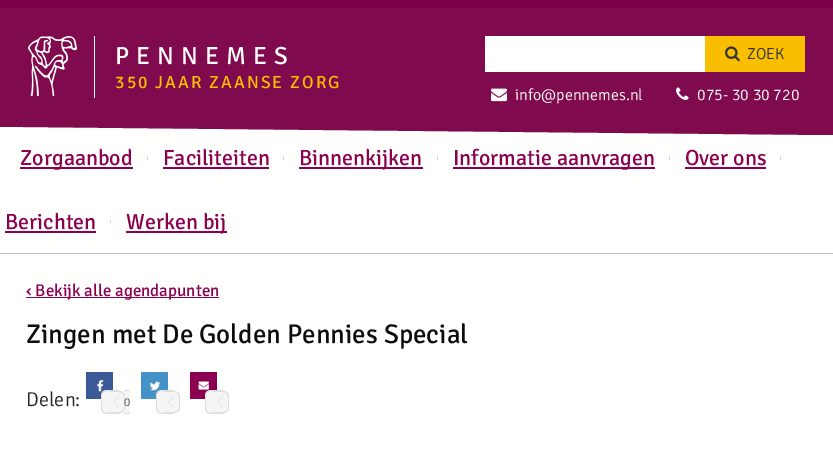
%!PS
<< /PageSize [833 474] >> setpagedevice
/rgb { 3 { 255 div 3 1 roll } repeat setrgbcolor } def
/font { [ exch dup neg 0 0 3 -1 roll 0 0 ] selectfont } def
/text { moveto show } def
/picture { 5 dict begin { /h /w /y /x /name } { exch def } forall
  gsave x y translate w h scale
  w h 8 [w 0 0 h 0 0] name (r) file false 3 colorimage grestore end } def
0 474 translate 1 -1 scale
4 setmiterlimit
255 255 253 rgb
0 0 833 474 rectfill
128 10 78 rgb
0 8 833 117 rectfill
127 0 74 rgb
0 0 833 8 rectfill
(img_01.rgb) 28 36 49 60 picture
255 255 255 rgb
94 36 1 62 rectfill
485 36 220 36 rectfill
249 190 0 rgb
705 36 100 36 rectfill
(img_02.rgb) 725 46 15 16 picture
(img_03.rgb) 491 88 16 14 picture
(img_04.rgb) 676 87 13 13 picture
128 10 78 rgb
-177 125 moveto 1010 0 rlineto -10 10 rlineto closepath fill
823 125 10 10 rectfill
139 0 81 rgb
20 167 113 2 rectfill
211 211 211 rgb
147 156 1 4 rectfill
139 0 81 rgb
163 167 106 2 rectfill
211 211 211 rgb
283 156 1 4 rectfill
139 0 81 rgb
299 167 124 2 rectfill
211 211 211 rgb
437 156 1 4 rectfill
139 0 81 rgb
453 167 202 2 rectfill
211 211 211 rgb
669 156 1 4 rectfill
139 0 81 rgb
685 167 81 2 rectfill
211 211 211 rgb
780 156 1 4 rectfill
139 0 81 rgb
5 231 91 2 rectfill
211 211 211 rgb
110 220 1 3 rectfill
139 0 81 rgb
126 231 101 2 rectfill
194 194 194 rgb
0 253 833 1 rectfill
139 0 81 rgb
26 297 193 1 rectfill
(img_05.rgb) 86 372 27 27 picture
245 245 245 rgb
107 390 moveto 12 0 rlineto 0 24 rlineto -12 0 rlineto -3.5 0 -6 -2.5 -6 -6 rcurveto 0 -12 rlineto 0 -3.5 2.5 -6 6 -6 rcurveto closepath fill
224 221 221 rgb
107 390 moveto 12 0 rlineto 0 24 rlineto -12 0 rlineto -3.5 0 -6 -2.5 -6 -6 rcurveto 0 -12 rlineto 0 -3.5 2.5 -6 6 -6 rcurveto closepath 107 391 moveto 12 0 rlineto 0 22 rlineto -12 0 rlineto -3 0 -5 -2 -5 -5 rcurveto 0 -12 rlineto 0 -3 2 -5 5 -5 rcurveto closepath eofill
245 245 245 rgb
124 390 6 24 rectfill
224 221 221 rgb
124 390 6 1 rectfill
124 413 6 1 rectfill
245 245 245 rgb
109 391 moveto 10 0 rlineto 3.5 0 6 2.5 6 6 rcurveto 0 10 rlineto 0 3.5 -2.5 6 -6 6 rcurveto -10 0 rlineto closepath fill
224 221 221 rgb
109 391 moveto 10 0 rlineto 3.5 0 6 2.5 6 6 rcurveto 0 10 rlineto 0 3.5 -2.5 6 -6 6 rcurveto -10 0 rlineto closepath 109 392 moveto 10 0 rlineto 3 0 5 2 5 5 rcurveto 0 10 rlineto 0 3 -2 5 -5 5 rcurveto -10 0 rlineto closepath eofill
119 396 moveto 0 12 rlineto -6 -6 rlineto closepath fill
245 245 245 rgb
119 397 moveto 0 10 rlineto -5 -5 rlineto closepath fill
(img_06.rgb) 141 372 27 27 picture
162 390 moveto 12 0 rlineto 0 24 rlineto -12 0 rlineto -3.5 0 -6 -2.5 -6 -6 rcurveto 0 -12 rlineto 0 -3.5 2.5 -6 6 -6 rcurveto closepath fill
224 221 221 rgb
162 390 moveto 12 0 rlineto 0 24 rlineto -12 0 rlineto -3.5 0 -6 -2.5 -6 -6 rcurveto 0 -12 rlineto 0 -3.5 2.5 -6 6 -6 rcurveto closepath 162 391 moveto 12 0 rlineto 0 22 rlineto -12 0 rlineto -3 0 -5 -2 -5 -5 rcurveto 0 -12 rlineto 0 -3 2 -5 5 -5 rcurveto closepath eofill
245 245 245 rgb
164 391 moveto 10 0 rlineto 3.5 0 6 2.5 6 6 rcurveto 0 10 rlineto 0 3.5 -2.5 6 -6 6 rcurveto -10 0 rlineto closepath fill
224 221 221 rgb
164 391 moveto 10 0 rlineto 3.5 0 6 2.5 6 6 rcurveto 0 10 rlineto 0 3.5 -2.5 6 -6 6 rcurveto -10 0 rlineto closepath 164 392 moveto 10 0 rlineto 3 0 5 2 5 5 rcurveto 0 10 rlineto 0 3 -2 5 -5 5 rcurveto -10 0 rlineto closepath eofill
174 396 moveto 0 12 rlineto -6 -6 rlineto closepath fill
245 245 245 rgb
174 397 moveto 0 10 rlineto -5 -5 rlineto closepath fill
(img_07.rgb) 190 372 27 27 picture
211 390 moveto 12 0 rlineto 0 24 rlineto -12 0 rlineto -3.5 0 -6 -2.5 -6 -6 rcurveto 0 -12 rlineto 0 -3.5 2.5 -6 6 -6 rcurveto closepath fill
224 221 221 rgb
211 390 moveto 12 0 rlineto 0 24 rlineto -12 0 rlineto -3.5 0 -6 -2.5 -6 -6 rcurveto 0 -12 rlineto 0 -3.5 2.5 -6 6 -6 rcurveto closepath 211 391 moveto 12 0 rlineto 0 22 rlineto -12 0 rlineto -3 0 -5 -2 -5 -5 rcurveto 0 -12 rlineto 0 -3 2 -5 5 -5 rcurveto closepath eofill
245 245 245 rgb
213 391 moveto 10 0 rlineto 3.5 0 6 2.5 6 6 rcurveto 0 10 rlineto 0 3.5 -2.5 6 -6 6 rcurveto -10 0 rlineto closepath fill
224 221 221 rgb
213 391 moveto 10 0 rlineto 3.5 0 6 2.5 6 6 rcurveto 0 10 rlineto 0 3.5 -2.5 6 -6 6 rcurveto -10 0 rlineto closepath 213 392 moveto 10 0 rlineto 3 0 5 2 5 5 rcurveto 0 10 rlineto 0 3 -2 5 -5 5 rcurveto -10 0 rlineto closepath eofill
223 396 moveto 0 12 rlineto -6 -6 rlineto closepath fill
245 245 245 rgb
223 397 moveto 0 10 rlineto -5 -5 rlineto closepath fill
/Signika-Regular 24.75 font
255 255 255 rgb
115 64 moveto 7 0 (PENNEMES) ashow
/Signika-Regular 17.6 font
249 190 0 rgb
115 88 moveto 2 0 (350 JAAR ZAANSE ZORG) ashow
/Signika-Light 16 font
51 51 51 rgb
(ZOEK) 747 59 text
255 255 255 rgb
(info@pennemes.nl) 515 100 text
(075- 30 30 720) 697 100 text
/Signika-Regular 22 font
139 0 81 rgb
(Zorgaanbod) 20 165 text
(Faciliteiten) 163 165 text
(Binnenkijken) 299 165 text
(Informatie aanvragen) 453 165 text
(Over ons) 685 165 text
(Berichten) 5 229 text
(Werken bij) 126 229 text
/Signika-Regular 17 font
(‹ Bekijk alle agendapunten) 26 296 text
/Signika-Regular 27 font
13 13 13 rgb
(Zingen met De Golden Pennies Special) 26 343 text
/Signika-Light 20 font
39 39 39 rgb
(Delen:) 26 406 text
/LiberationSans-Regular 11 font
85 94 88 rgb
(0) 124 406 text
showpage
